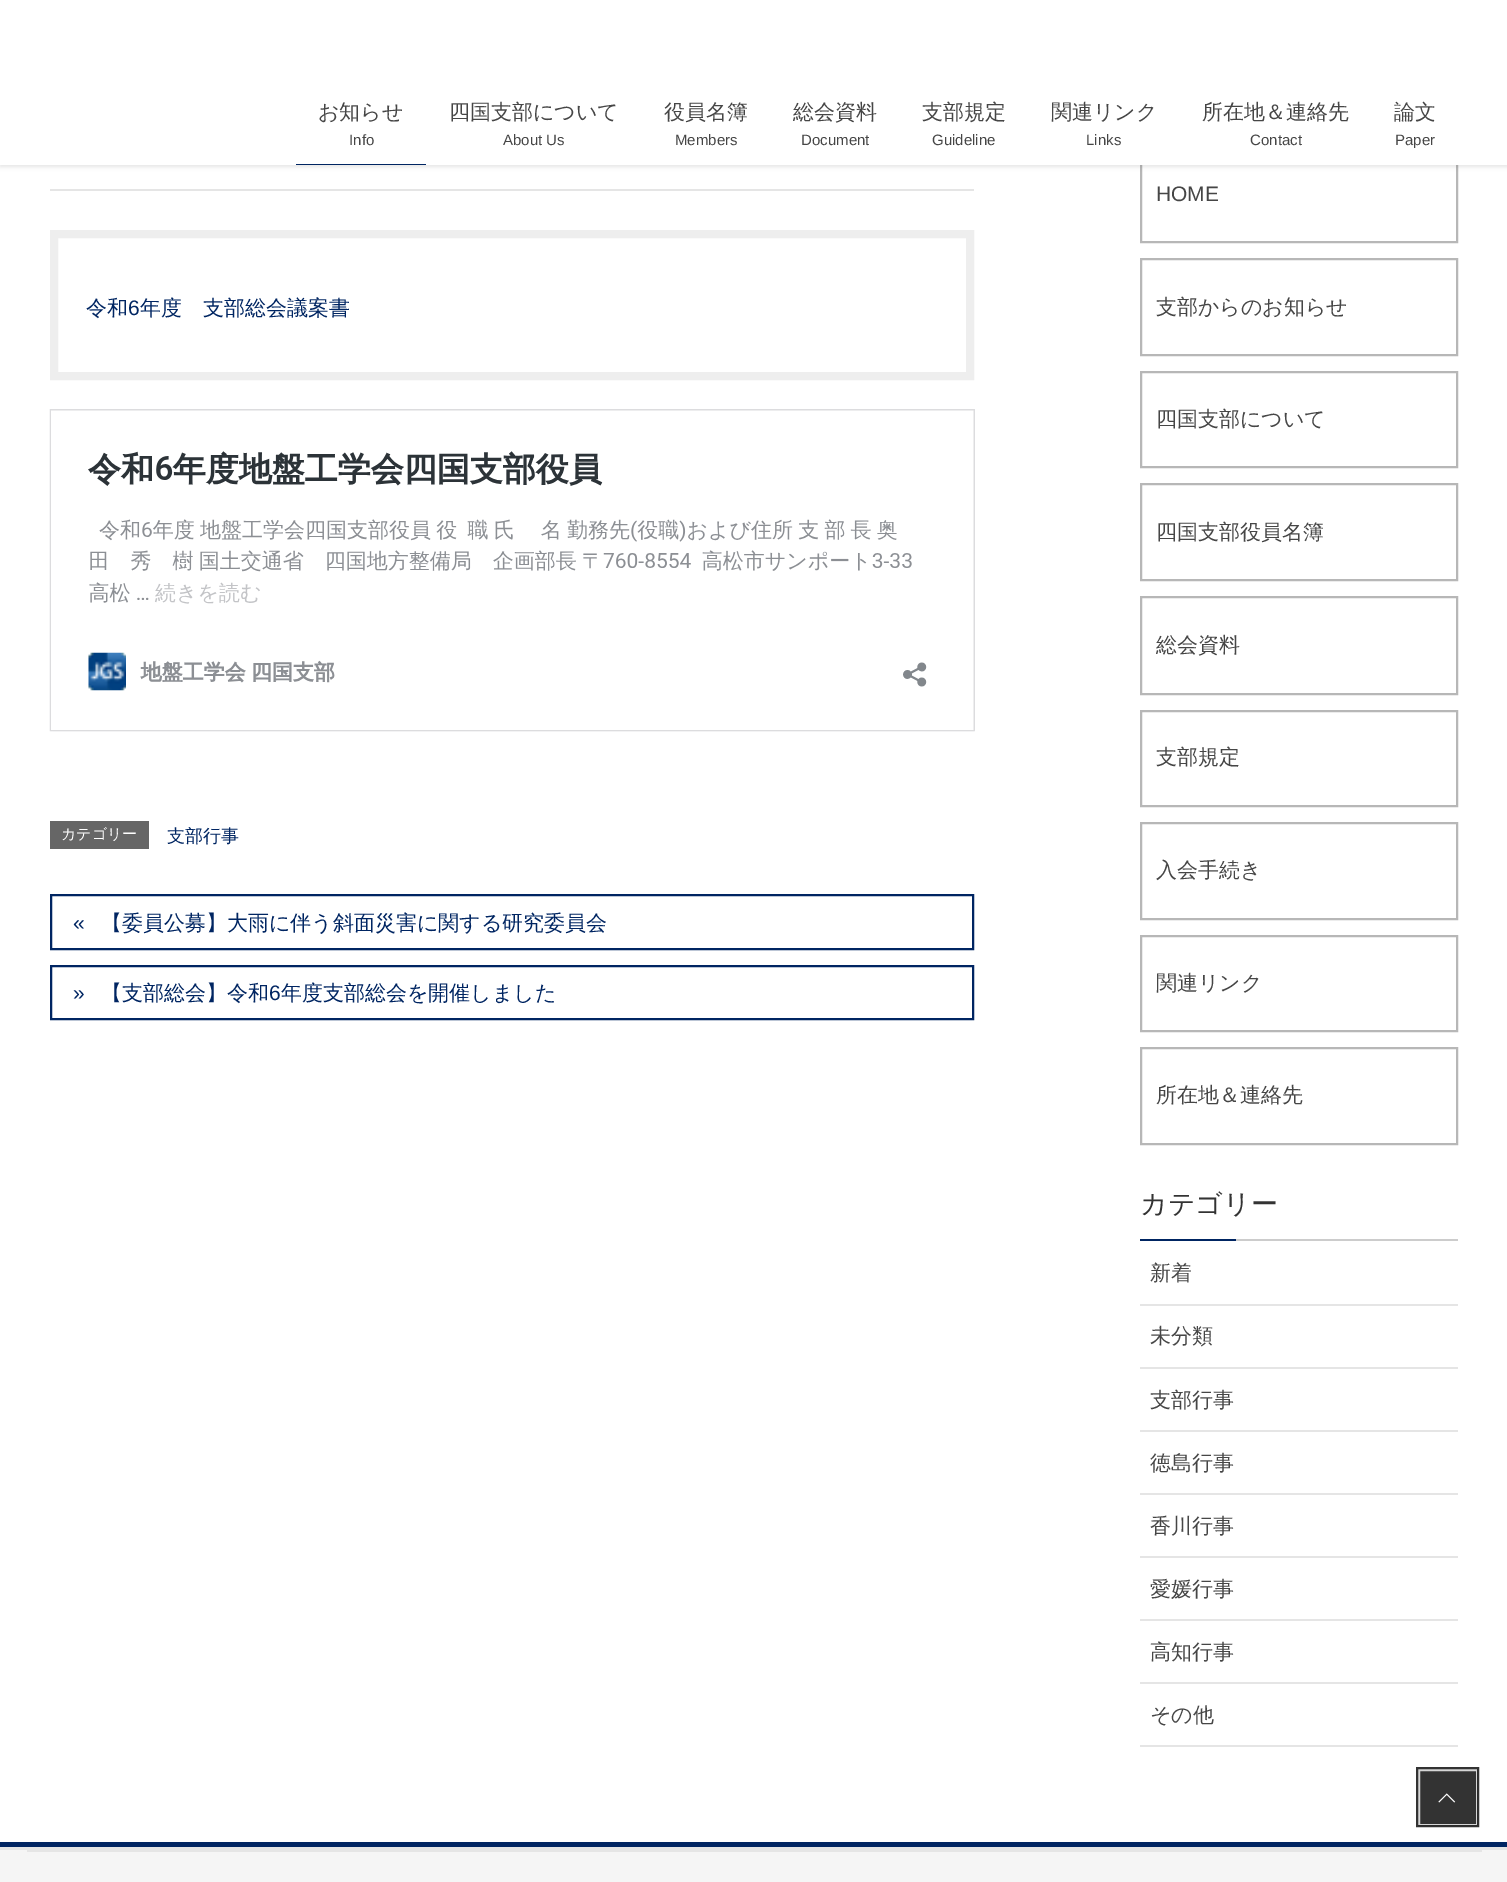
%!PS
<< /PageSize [1507 1882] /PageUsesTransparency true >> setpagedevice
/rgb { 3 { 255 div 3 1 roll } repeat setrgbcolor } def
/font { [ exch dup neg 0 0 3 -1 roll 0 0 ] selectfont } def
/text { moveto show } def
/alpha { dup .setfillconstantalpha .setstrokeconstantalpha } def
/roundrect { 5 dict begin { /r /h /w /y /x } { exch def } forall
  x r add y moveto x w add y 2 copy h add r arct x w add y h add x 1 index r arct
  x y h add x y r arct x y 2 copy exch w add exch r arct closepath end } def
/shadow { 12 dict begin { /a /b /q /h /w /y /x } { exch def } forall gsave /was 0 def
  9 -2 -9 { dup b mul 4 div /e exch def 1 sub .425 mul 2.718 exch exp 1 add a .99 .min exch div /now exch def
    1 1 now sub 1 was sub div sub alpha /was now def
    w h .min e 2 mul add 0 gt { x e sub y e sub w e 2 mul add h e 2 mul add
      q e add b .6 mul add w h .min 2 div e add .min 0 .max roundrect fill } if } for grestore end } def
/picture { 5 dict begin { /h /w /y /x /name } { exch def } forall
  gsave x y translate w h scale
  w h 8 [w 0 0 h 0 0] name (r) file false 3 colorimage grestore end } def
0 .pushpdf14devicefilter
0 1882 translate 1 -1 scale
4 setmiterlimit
255 255 255 rgb
0 0 1507 1882 rectfill
183 183 183 rgb
2 setlinewidth
1141 147 316 95 rectstroke
0 0 0 rgb
0 2 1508 165 0 2 0.1 shadow
255 255 255 rgb
0 0 1507 165 rectfill
0 37 98 rgb
296 164 130 1 rectfill
229 229 229 rgb
50 189 924 2 rectfill
238 238 238 rgb
8 setlinewidth
54 234 916 142 rectstroke
(img_01.rgb) 49 409 926 323 picture
102 102 102 rgb
50 821 99 28 rectfill
0 37 98 rgb
2 setlinewidth
51 895 922 54 rectstroke
51 966 922 53 rectstroke
183 183 183 rgb
1141 259 316 96 rectstroke
1141 372 316 95 rectstroke
1141 484 316 96 rectstroke
1141 597 316 97 rectstroke
1141 711 316 95 rectstroke
1141 823 316 96 rectstroke
1141 936 316 95 rectstroke
1141 1048 316 96 rectstroke
204 204 204 rgb
1236 1239 222 2 rectfill
0 37 98 rgb
1140 1239 96 2 rectfill
229 229 229 rgb
1140 1304 318 2 rectfill
1140 1367 318 2 rectfill
1140 1430 318 2 rectfill
1140 1493 318 2 rectfill
1140 1556 318 2 rectfill
1140 1619 318 2 rectfill
1140 1682 318 2 rectfill
1140 1745 318 2 rectfill
51 51 51 rgb
1420 1771 56 53 rectfill
(img_02.rgb) 1438 1793 18 10 picture
214 214 214 rgb
1419 1770 58 55 rectstroke
0.8 alpha
0 0 0 rgb
1417 1768 61 58 rectstroke
1 alpha
245 245 245 rgb
0 1850 1507 32 rectfill
0 37 98 rgb
0 1842 1507 5 rectfill
229 229 229 rgb
0 1847 1507 3 rectfill
27 1850 1455 2 rectfill
/WenQuanYiZenHei-Medium 21 font
70 70 70 rgb
(お知らせ) 318 119 text
/LiberationSans-Regular 15 font
(Info) 349 145 text
/WenQuanYiZenHei-Medium 21 font
(四国支部について) 449 119 text
/LiberationSans-Regular 15 font
(About Us) 503 145 text
/WenQuanYiZenHei-Medium 21 font
(役員名簿) 664 119 text
/LiberationSans-Regular 15 font
(Members) 675 145 text
/WenQuanYiZenHei-Medium 21 font
(総会資料) 793 119 text
/LiberationSans-Regular 15 font
(Document) 801 145 text
/WenQuanYiZenHei-Medium 21 font
(支部規定) 922 119 text
/LiberationSans-Regular 15 font
(Guideline) 932 145 text
/WenQuanYiZenHei-Medium 21 font
(関連リンク) 1051 119 text
/LiberationSans-Regular 15 font
(Links) 1086 145 text
/WenQuanYiZenHei-Medium 21 font
(所在地＆連絡先) 1202 119 text
/LiberationSans-Regular 15 font
(Contact) 1250 145 text
/WenQuanYiZenHei-Medium 21 font
(論文) 1394 119 text
/LiberationSans-Regular 15 font
(Paper) 1395 145 text
/WenQuanYiZenHei-Medium 21 font
0 37 98 rgb
(令和) 86 315 text
/LiberationSans-Regular 21 font
(6) 128 315 text
/WenQuanYiZenHei-Medium 21 font
(年度　支部総会議案書) 140 315 text
/WenQuanYiZenHei-Medium 15 font
255 255 255 rgb
(カテゴリー) 61 839 text
/WenQuanYiZenHei-Medium 18 font
0 37 98 rgb
(支部行事) 167 842 text
/LiberationSans-Regular 21 font
(«) 73 930 text
/WenQuanYiZenHei-Medium 21 font
(【委員公募】大雨に伴う斜面災害に関する研究委員会) 101 930 text
/LiberationSans-Regular 21 font
(») 73 1000 text
/WenQuanYiZenHei-Medium 21 font
(【支部総会】令和) 101 1000 text
/LiberationSans-Regular 21 font
(6) 269 1000 text
/WenQuanYiZenHei-Medium 21 font
(年度支部総会を開催しました) 281 1000 text
/LiberationSans-Regular 21 font
70 70 70 rgb
(HOME) 1156 201 text
/WenQuanYiZenHei-Medium 21 font
(支部からのお知らせ) 1156 314 text
(四国支部について) 1156 426 text
(四国支部役員名簿) 1156 539 text
(総会資料) 1156 652 text
(支部規定) 1156 764 text
(入会手続き) 1156 877 text
(関連リンク) 1156 990 text
(所在地＆連絡先) 1156 1102 text
/WenQuanYiZenHei-Medium 27 font
51 51 51 rgb
(カテゴリー) 1140 1213 text
/WenQuanYiZenHei-Medium 21 font
70 70 70 rgb
(新着) 1150 1280 text
(未分類) 1150 1343 text
(支部行事) 1150 1407 text
(徳島行事) 1150 1470 text
(香川行事) 1150 1533 text
(愛媛行事) 1150 1596 text
(高知行事) 1150 1659 text
(その他) 1150 1722 text
.poppdf14devicefilter showpage
